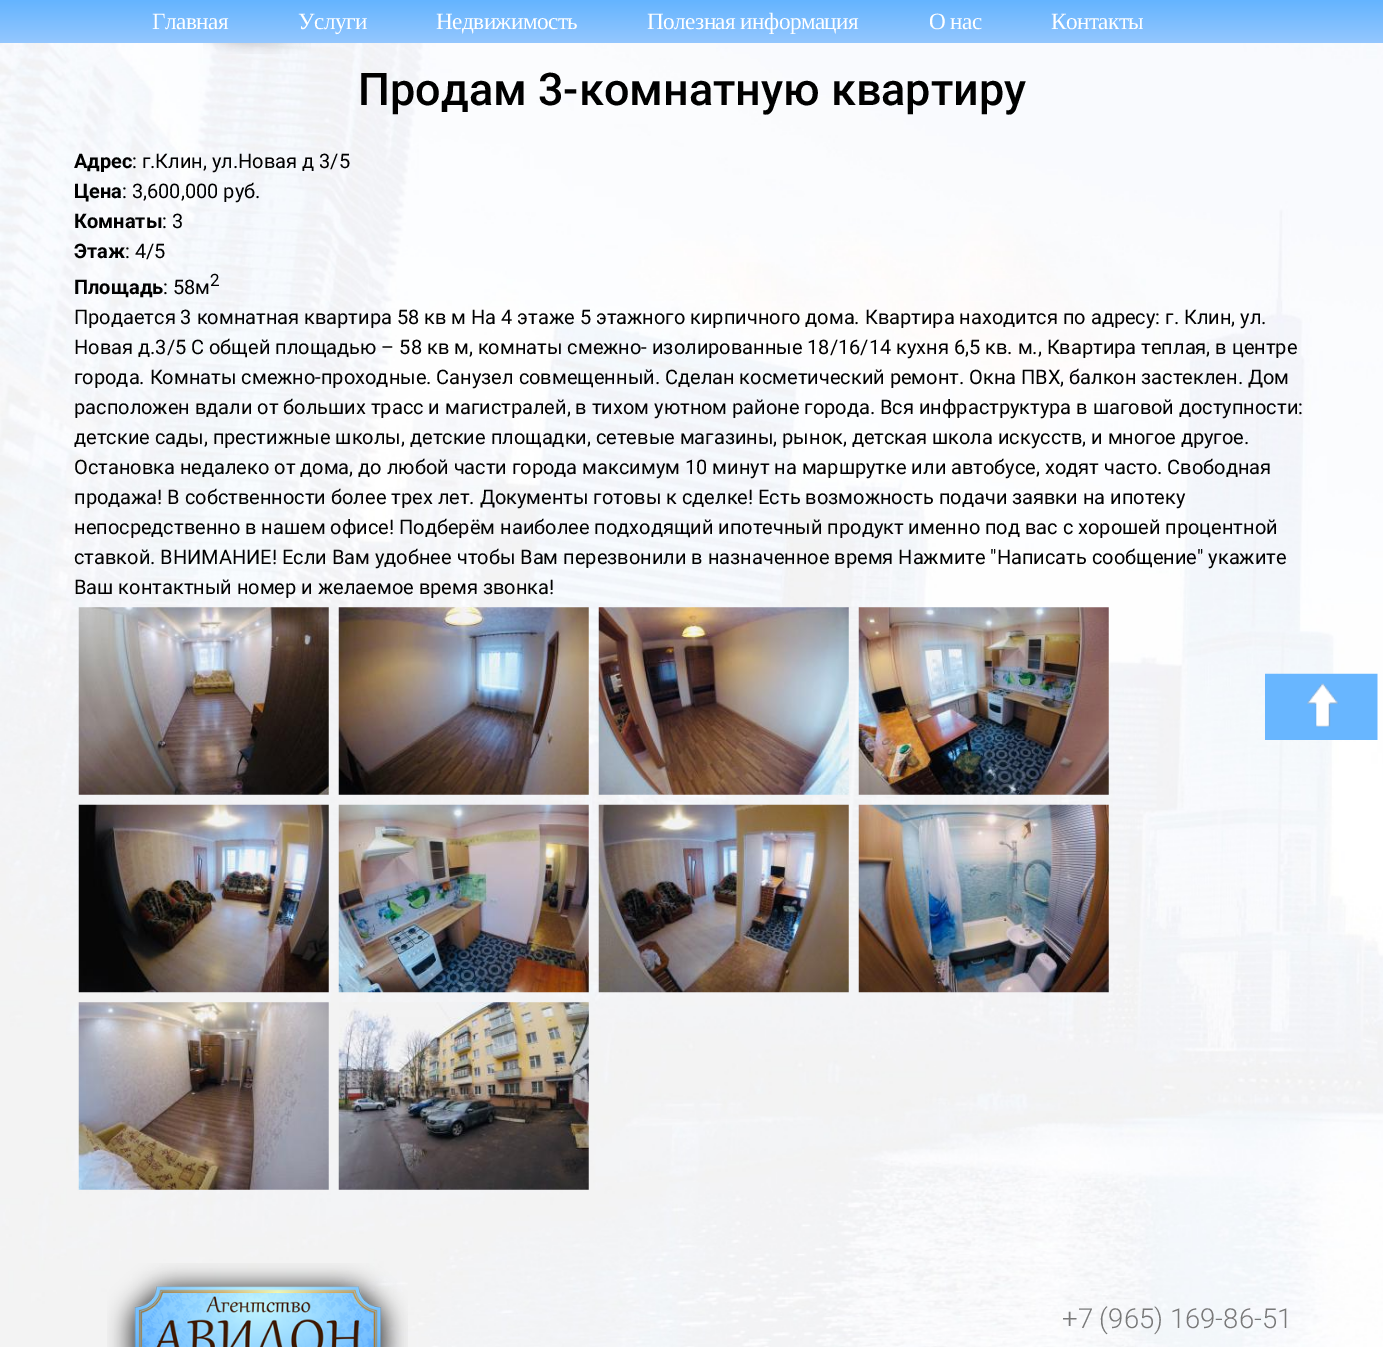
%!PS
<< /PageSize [1383 1347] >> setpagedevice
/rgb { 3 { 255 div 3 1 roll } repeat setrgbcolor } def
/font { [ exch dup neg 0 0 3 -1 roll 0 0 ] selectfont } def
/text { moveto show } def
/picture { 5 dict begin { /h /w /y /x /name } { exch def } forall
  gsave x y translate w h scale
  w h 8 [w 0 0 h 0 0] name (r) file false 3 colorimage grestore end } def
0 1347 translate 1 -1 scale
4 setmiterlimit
255 255 255 rgb
0 0 1383 1347 rectfill
(img_01.rgb) 0 43 1383 1304 picture
gsave 0 0 moveto 1383 0 rlineto 0 43 rlineto -1383 0 rlineto closepath clip newpath
<< /ShadingType 2 /ColorSpace /DeviceRGB /Coords [692 43 692 0] /Extend [true true] /Function << /FunctionType 2 /Domain [0 1] /C0 [0.58 0.78 0.996] /C1 [0.392 0.706 1] /N 1 >> >> shfill grestore
(img_02.rgb) 203 43 108 11 picture
(img_03.rgb) 78 607 251 188 picture
(img_04.rgb) 338 607 251 188 picture
(img_05.rgb) 598 607 251 188 picture
(img_06.rgb) 858 607 251 188 picture
(img_07.rgb) 78 804 251 189 picture
(img_08.rgb) 338 804 251 189 picture
(img_09.rgb) 598 804 251 189 picture
(img_10.rgb) 858 804 251 189 picture
(img_11.rgb) 78 1002 251 188 picture
(img_12.rgb) 338 1002 251 188 picture
(img_13.rgb) 1265 673 113 67 picture
(img_14.rgb) 107 1263 301 84 picture
/LiberationSerif-Regular 23.25 font
152 29 moveto -0.6 0 (Главная) ashow
298 29 moveto -0.6 0 (Услуги) ashow
436 29 moveto -0.6 0 (Недвижимость) ashow
647 29 moveto -0.6 0 (Полезная информация) ashow
929 29 moveto -0.6 0 (О нас) ashow
1051 29 moveto -0.6 0 (Контакты) ashow
/Roboto-Medium 45 font
0 0 0 rgb
(Продам 3-комнатную квартиру) 358 105 text
/Roboto-Bold 20 font
(Адрес) 74 168 text
/Roboto-Regular 20 font
(: г.Клин, ул.Новая д 3/5) 132 168 text
/Roboto-Bold 20 font
(Цена) 74 198 text
/Roboto-Regular 20 font
(: 3,600,000 руб.) 122 198 text
/Roboto-Bold 20 font
(Комнаты) 74 228 text
/Roboto-Regular 20 font
(: 3) 162 228 text
/Roboto-Bold 20 font
(Этаж) 74 258 text
/Roboto-Regular 20 font
(: 4/5) 125 258 text
/Roboto-Bold 20 font
(Площадь) 74 294 text
/Roboto-Regular 20 font
(: 58м) 163 294 text
/Roboto-Regular 17 font
(2) 210 286 text
/Roboto-Regular 20 font
(Продается 3 комнатная квартира 58 кв м На 4 этаже 5 этажного кирпичного дома. Квартира находится по адресу: г. Клин, ул.) 74 324 text
(Новая д.3/5 С общей площадью – 58 кв м, комнаты смежно- изолированные 18/16/14 кухня 6,5 кв. м., Квартира теплая, в центре) 74 354 text
(города. Комнаты смежно-проходные. Санузел совмещенный. Сделан косметический ремонт. Окна ПВХ, балкон застеклен. Дом) 74 384 text
(расположен вдали от больших трасс и магистралей, в тихом уютном районе города. Вся инфраструктура в шаговой доступности:) 74 414 text
(детские сады, престижные школы, детские площадки, сетевые магазины, рынок, детская школа искусств, и многое другое.) 74 444 text
(Остановка недалеко от дома, до любой части города максимум 10 минут на маршрутке или автобусе, ходят часто. Свободная) 74 474 text
(продажа! В собственности более трех лет. Документы готовы к сделке! Есть возможность подачи заявки на ипотеку) 74 504 text
(непосредственно в нашем офисе! Подберём наиболее подходящий ипотечный продукт именно под вас с хорошей процентной) 74 534 text
(ставкой. ВНИМАНИЕ! Если Вам удобнее чтобы Вам перезвонили в назначенное время Нажмите "Написать сообщение" укажите) 74 564 text
(Ваш контактный номер и желаемое время звонка!) 74 594 text
/Roboto-Light 27.5 font
121 121 121 rgb
(+7 \(965\) 169-86-51) 1062 1328 text
showpage
